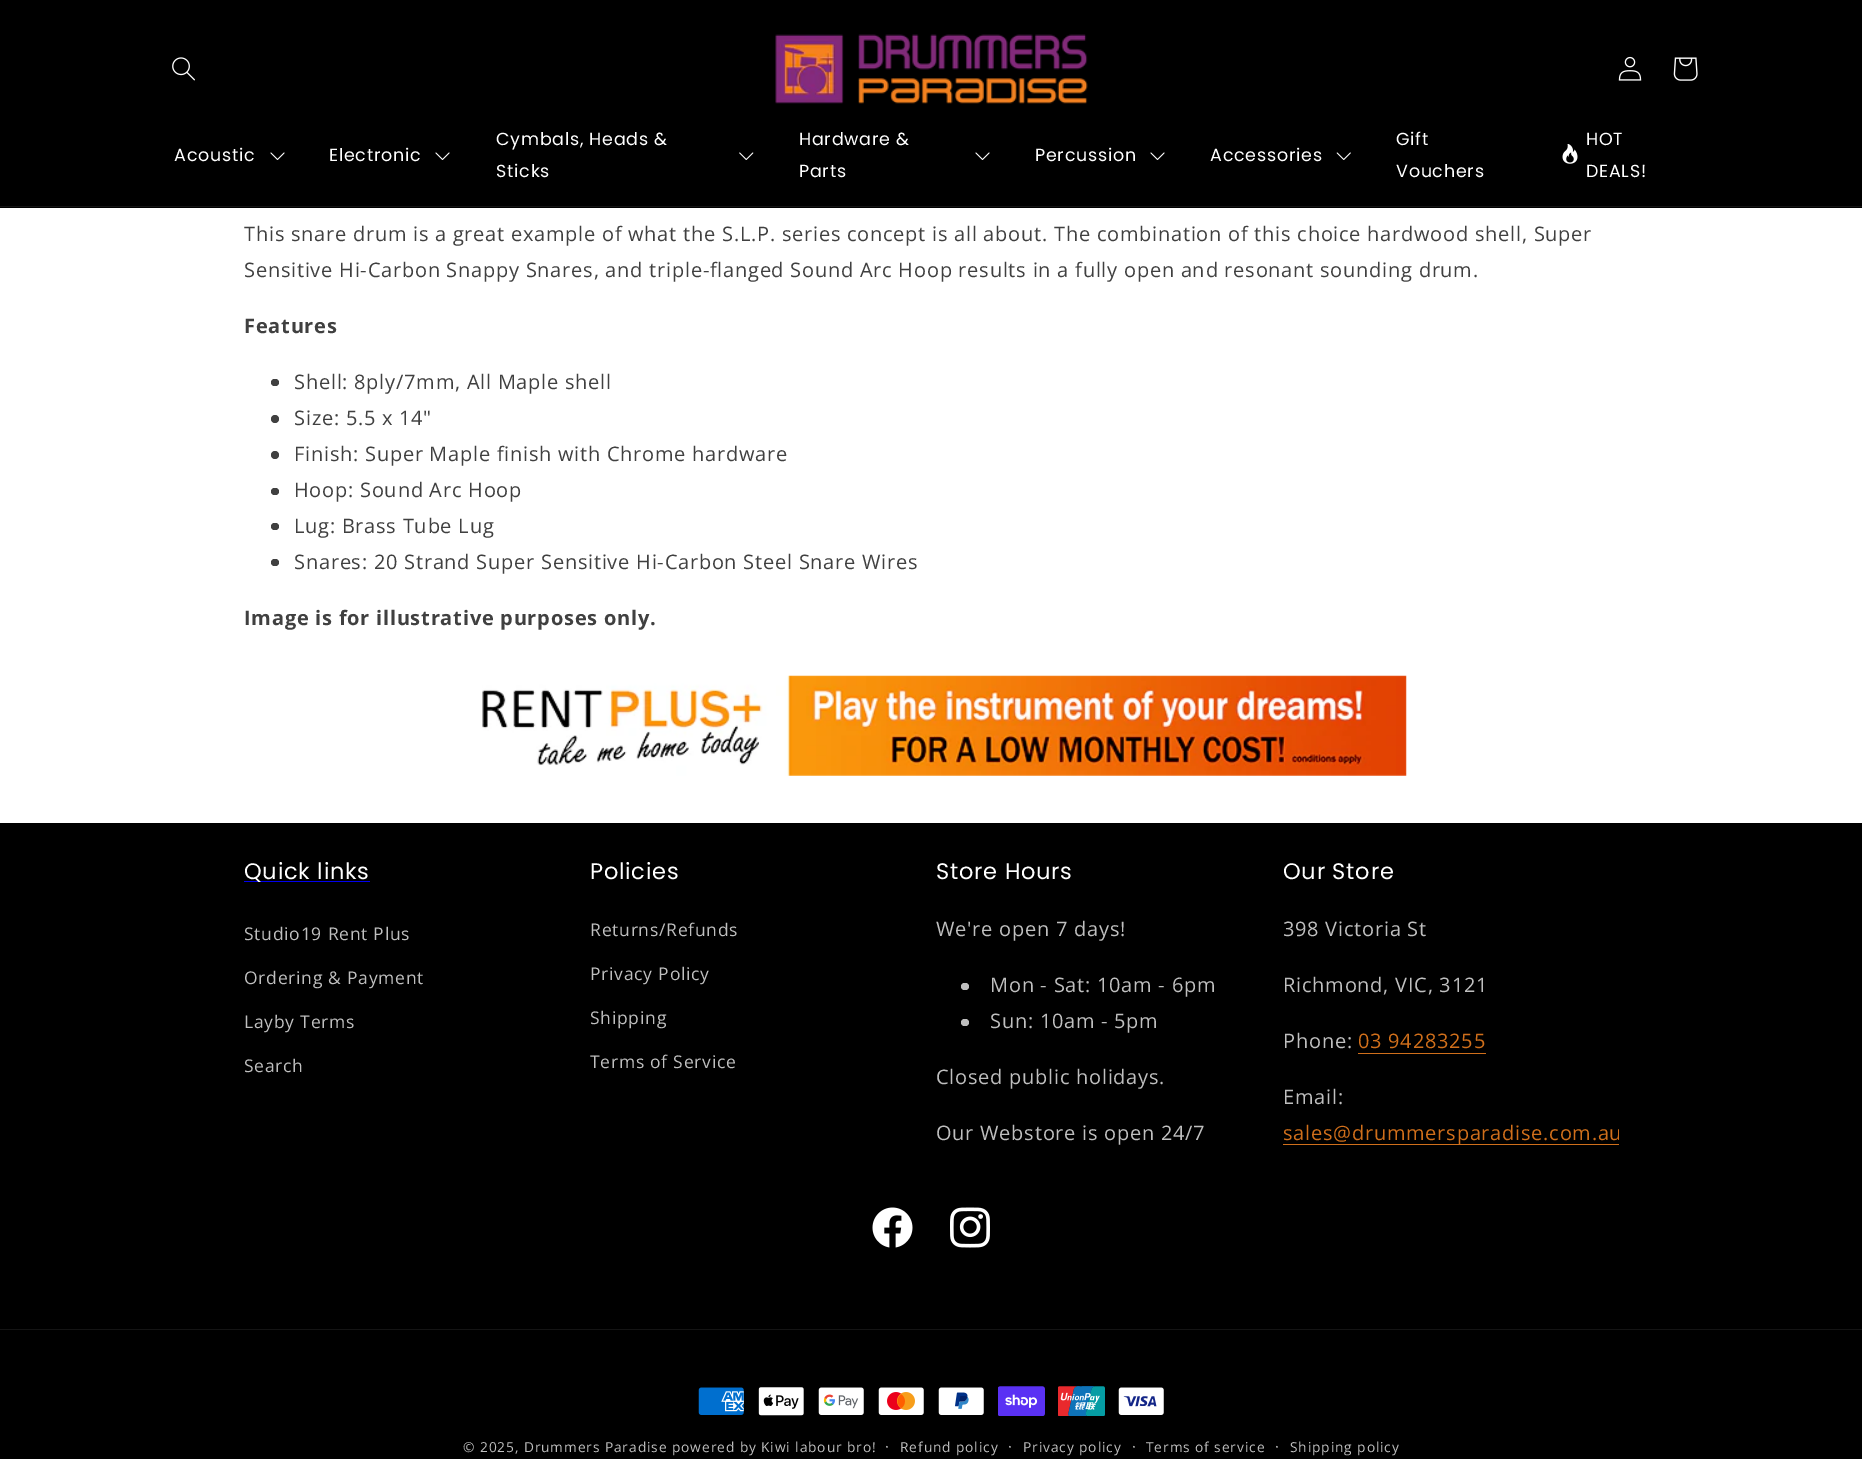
%!PS
<< /PageSize [1862 1459] >> setpagedevice
/rgb { 3 { 255 div 3 1 roll } repeat setrgbcolor } def
/font { [ exch dup neg 0 0 3 -1 roll 0 0 ] selectfont } def
/circle { newpath 0 360 arc closepath } def
/roundrect { 5 dict begin { /r /h /w /y /x } { exch def } forall
  x r add y moveto x w add y 2 copy h add r arct x w add y h add x 1 index r arct
  x y h add x y r arct x y 2 copy exch w add exch r arct closepath end } def
/picture { 5 dict begin { /h /w /y /x /name } { exch def } forall
  gsave x y translate w h scale
  w h 8 [w 0 0 h 0 0] name (r) file false 3 colorimage grestore end } def
0 1459 translate 1 -1 scale
4 setmiterlimit
255 255 255 rgb
0 0 1862 1459 rectfill
0 0 0 rgb
0 0 1862 208 rectfill
20 20 20 rgb
0 206 1862 1 rectfill
(img_01.rgb) 172 57 23 24 picture
(img_02.rgb) 775 34 313 70 picture
(img_03.rgb) 1618 56 24 25 picture
(img_04.rgb) 1673 57 25 24 picture
(img_05.rgb) 270 152 15 8 picture
(img_05.rgb) 435 152 15 8 picture
(img_06.rgb) 739 152 15 8 picture
(img_05.rgb) 975 152 15 8 picture
(img_05.rgb) 1150 152 15 8 picture
(img_07.rgb) 1336 152 15 8 picture
(img_08.rgb) 1562 144 16 20 picture
64 64 64 rgb
271 379 8 7 3.5 roundrect fill
275 419 4 circle fill
275 455 4 circle fill
271 488 8 7 3.5 roundrect fill
271 523 8 7 3.5 roundrect fill
271 559 8 7 3.5 roundrect fill
(img_09.rgb) 482 675 925 101 picture
0 0 0 rgb
0 823 1862 636 rectfill
0 0 238 rgb
244 881 126 1 rectfill
191 191 191 rgb
961 983 8 7 3.5 roundrect fill
961 1019 8 7 3.5 roundrect fill
208 111 27 rgb
1358 1053 128 1 rectfill
1283 1144 336 1 rectfill
(img_10.rgb) 872 1207 41 41 picture
(img_11.rgb) 950 1207 40 41 picture
20 20 20 rgb
0 1329 1862 1 rectfill
(img_12.rgb) 698 1387 46 28 picture
(img_13.rgb) 758 1387 46 29 picture
(img_14.rgb) 818 1387 46 28 picture
(img_15.rgb) 878 1387 46 28 picture
(img_16.rgb) 938 1387 46 28 picture
(img_17.rgb) 998 1386 47 30 picture
(img_18.rgb) 1058 1386 47 30 picture
(img_19.rgb) 1118 1387 46 28 picture
/Poppins-Regular 17.5 font
255 255 255 rgb
174 161 moveto 0.75 0 (Acoustic) ashow
329 161 moveto 0.75 0 (Electronic) ashow
496 145 moveto 0.75 0 (Cymbals, Heads &) ashow
496 177 moveto 0.75 0 (Sticks) ashow
799 145 moveto 0.75 0 (Hardware &) ashow
799 177 moveto 0.75 0 (Parts) ashow
1035 161 moveto 0.75 0 (Percussion) ashow
1210 161 moveto 0.75 0 (Accessories) ashow
1396 145 moveto 0.75 0 (Gift) ashow
1396 177 moveto 0.75 0 (Vouchers) ashow
1586 145 moveto 0.75 0 (HOT) ashow
1586 177 moveto 0.75 0 (DEALS!) ashow
/OpenSans-Regular 20 font
64 64 64 rgb
244 241 moveto 0.75 0 (This snare drum is a great example of what the S.L.P. series concept is all about. The combination of this choice hardwood shell, Super) ashow
244 277 moveto 0.75 0 (Sensitive Hi-Carbon Snappy Snares, and triple-flanged Sound Arc Hoop results in a fully open and resonant sounding drum.) ashow
/OpenSans-Bold 20 font
244 333 moveto 0.75 0 (Features) ashow
/OpenSans-Regular 20 font
294 389 moveto 0.75 0 (Shell: 8ply/7mm, All Maple shell) ashow
294 425 moveto 0.75 0 (Size: 5.5 x 14") ashow
294 461 moveto 0.75 0 (Finish: Super Maple finish with Chrome hardware) ashow
294 497 moveto 0.75 0 (Hoop: Sound Arc Hoop) ashow
294 533 moveto 0.75 0 (Lug: Brass Tube Lug) ashow
294 569 moveto 0.75 0 (Snares: 20 Strand Super Sensitive Hi-Carbon Steel Snare Wires) ashow
/OpenSans-Bold 20 font
244 625 moveto 0.75 0 (Image is for illustrative purposes only.) ashow
/Poppins-Regular 22.5 font
255 255 255 rgb
244 879 moveto 0.75 0 (Quick links) ashow
/OpenSans-Regular 17.5 font
191 191 191 rgb
244 940 moveto 0.75 0 (Studio19 Rent Plus) ashow
244 984 moveto 0.75 0 (Ordering & Payment) ashow
244 1028 moveto 0.75 0 (Layby Terms) ashow
244 1072 moveto 0.75 0 (Search) ashow
/Poppins-Regular 22.5 font
255 255 255 rgb
590 879 moveto 0.75 0 (Policies) ashow
/OpenSans-Regular 17.5 font
191 191 191 rgb
590 936 moveto 0.75 0 (Returns/Refunds) ashow
590 980 moveto 0.75 0 (Privacy Policy) ashow
590 1024 moveto 0.75 0 (Shipping) ashow
590 1068 moveto 0.75 0 (Terms of Service) ashow
/Poppins-Regular 22.5 font
255 255 255 rgb
936 879 moveto 0.75 0 (Store Hours) ashow
/OpenSans-Regular 20 font
191 191 191 rgb
936 936 moveto 0.75 0 (We're open 7 days!) ashow
990 992 moveto 0.75 0 (Mon - Sat: 10am - 6pm) ashow
990 1028 moveto 0.75 0 (Sun: 10am - 5pm) ashow
936 1084 moveto 0.75 0 (Closed public holidays.) ashow
936 1140 moveto 0.75 0 (Our Webstore is open 24/7) ashow
/Poppins-Regular 22.5 font
255 255 255 rgb
1283 879 moveto 0.75 0 (Our Store) ashow
/OpenSans-Regular 20 font
191 191 191 rgb
1283 936 moveto 0.75 0 (398 Victoria St) ashow
1283 992 moveto 0.75 0 (Richmond, VIC, 3121) ashow
1283 1048 moveto 0.75 0 (Phone:) ashow
208 111 27 rgb
1358 1048 moveto 0.75 0 (03 94283255) ashow
191 191 191 rgb
1283 1104 moveto 0.75 0 (Email:) ashow
gsave
1283 858 336 293 rectclip
208 111 27 rgb
1283 1140 moveto 0.75 0 (sales@drummersparadise.com.au) ashow
grestore
/OpenSans-Regular 13.75 font
463 1452 moveto 0.9 0 (© 2025, Drummers Paradise) ashow
672 1452 moveto 0.9 0 (powered by Kiwi labour bro!) ashow
/OpenSans-Regular 15 font
885 1452 moveto 0.9 0 (·) ashow
/OpenSans-Regular 13.75 font
900 1452 moveto 0.9 0 (Refund policy) ashow
/OpenSans-Regular 15 font
1008 1452 moveto 0.9 0 (·) ashow
/OpenSans-Regular 13.75 font
1023 1452 moveto 0.9 0 (Privacy policy) ashow
/OpenSans-Regular 15 font
1132 1452 moveto 0.9 0 (·) ashow
/OpenSans-Regular 13.75 font
1146 1452 moveto 0.9 0 (Terms of service) ashow
/OpenSans-Regular 15 font
1275 1452 moveto 0.9 0 (·) ashow
/OpenSans-Regular 13.75 font
1290 1452 moveto 0.9 0 (Shipping policy) ashow
showpage
